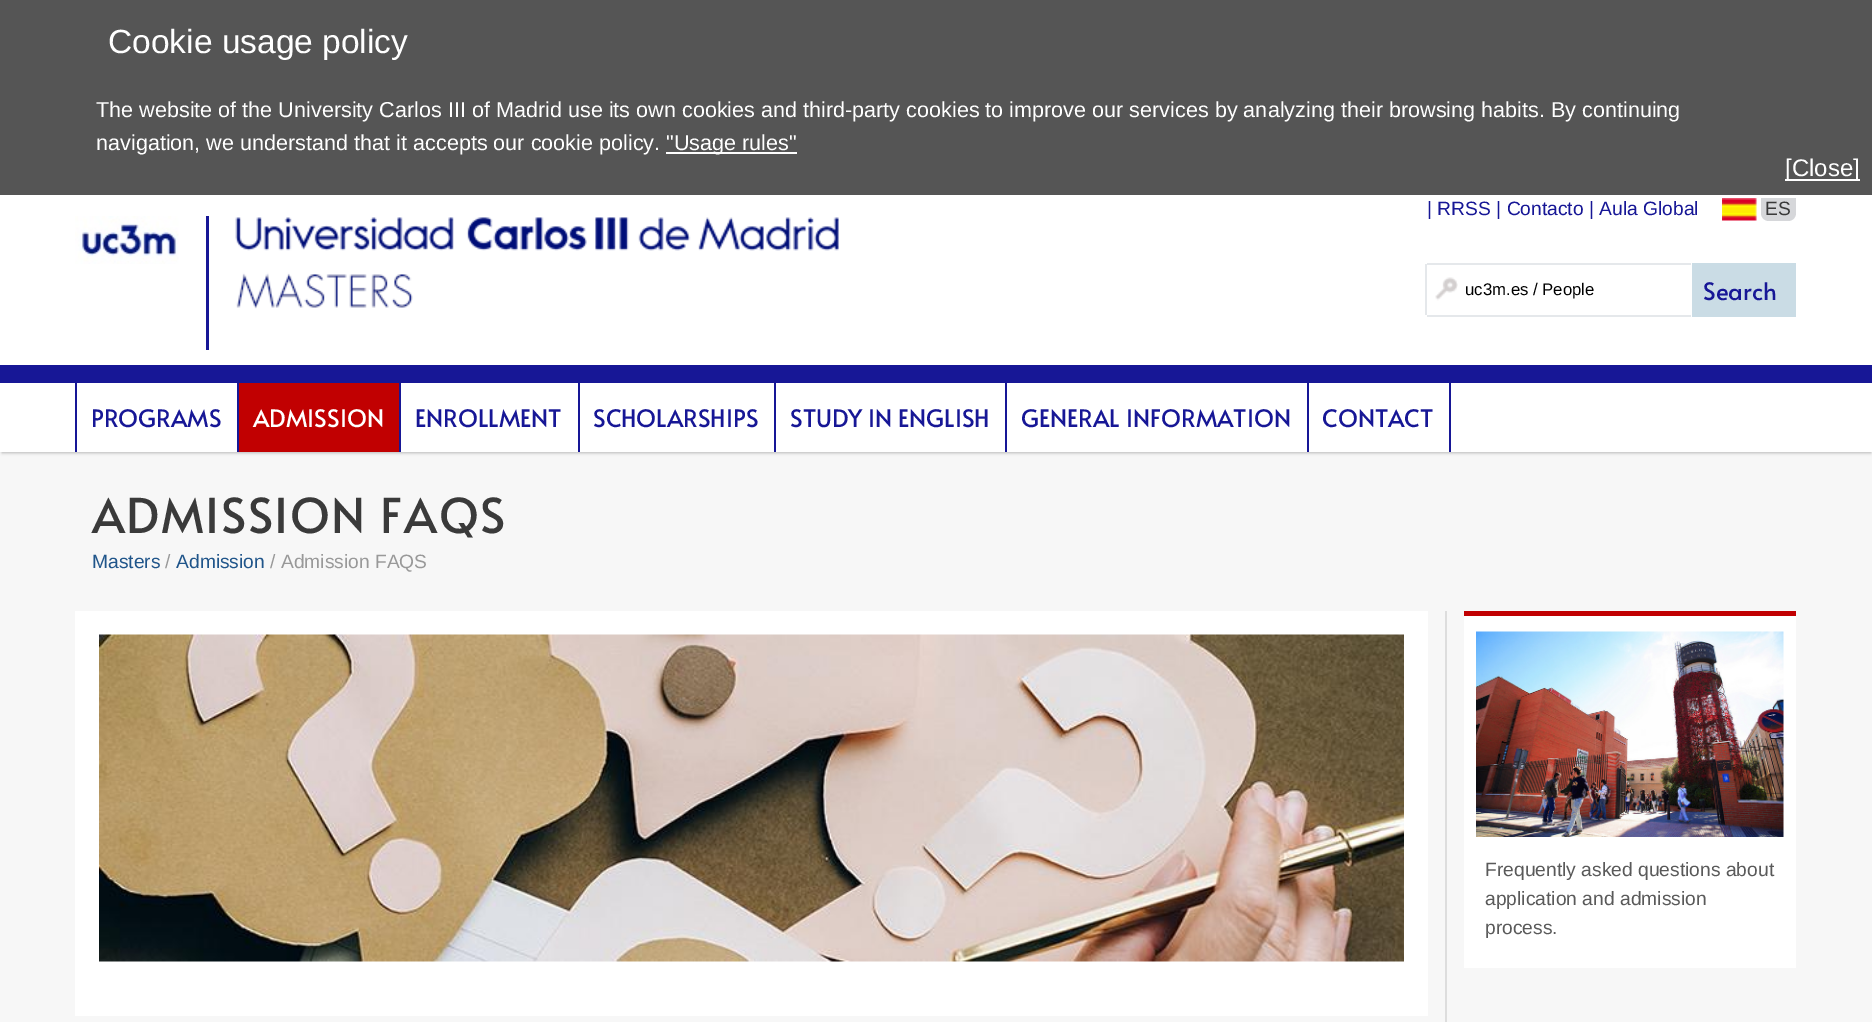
%!PS
<< /PageSize [1872 1022] /PageUsesTransparency true >> setpagedevice
/rgb { 3 { 255 div 3 1 roll } repeat setrgbcolor } def
/font { [ exch dup neg 0 0 3 -1 roll 0 0 ] selectfont } def
/text { moveto show } def
/alpha { dup .setfillconstantalpha .setstrokeconstantalpha } def
/roundrect { 5 dict begin { /r /h /w /y /x } { exch def } forall
  x r add y moveto x w add y 2 copy h add r arct x w add y h add x 1 index r arct
  x y h add x y r arct x y 2 copy exch w add exch r arct closepath end } def
/shadow { 12 dict begin { /a /b /q /h /w /y /x } { exch def } forall gsave /was 0 def
  9 -2 -9 { dup b mul 4 div /e exch def 1 sub .425 mul 2.718 exch exp 1 add a .99 .min exch div /now exch def
    1 1 now sub 1 was sub div sub alpha /was now def
    w h .min e 2 mul add 0 gt { x e sub y e sub w e 2 mul add h e 2 mul add
      q e add b .6 mul add w h .min 2 div e add .min 0 .max roundrect fill } if } for grestore end } def
/picture { 5 dict begin { /h /w /y /x /name } { exch def } forall
  gsave x y translate w h scale
  w h 8 [w 0 0 h 0 0] name (r) file false 3 colorimage grestore end } def
0 .pushpdf14devicefilter
0 1022 translate 1 -1 scale
4 setmiterlimit
247 247 247 rgb
0 0 1872 1022 rectfill
85 85 85 rgb
0 0 1872 195 rectfill
255 255 255 rgb
666 152 131 2 rectfill
1785 179 75 2 rectfill
0 195 1872 170 rectfill
23 23 150 rgb
0 365 1872 18 rectfill
(img_01.rgb) 75 216 104 48 picture
206 216 3 134 rectfill
(img_02.rgb) 235 217 604 92 picture
(img_03.rgb) 1722 198 35 23 picture
214 215 218 rgb
1761 198 moveto 35 0 rlineto 0 15 rlineto 0 4.5 -3.5 8 -8 8 rcurveto -19 0 rlineto -4.5 0 -8 -3.5 -8 -8 rcurveto closepath fill
(img_04.rgb) 1435 277 23 24 picture
229 232 235 rgb
1427 263 264 2 rectfill
1427 315 264 2 rectfill
1425 264 2 51 rectfill
202 220 229 rgb
1692 263 104 54 rectfill
183 183 183 rgb
2 387 1869 66 0 1.5 1 shadow
255 255 255 rgb
0 383 1872 69 rectfill
23 23 150 rgb
237 383 2 69 rectfill
75 383 2 69 rectfill
193 0 1 rgb
239 383 160 69 rectfill
23 23 150 rgb
399 383 2 69 rectfill
578 383 2 69 rectfill
774 383 2 69 rectfill
1005 383 2 69 rectfill
1307 383 2 69 rectfill
1449 383 2 69 rectfill
221 221 221 rgb
1445 611 2 411 rectfill
255 255 255 rgb
75 611 1353 405 rectfill
(img_05.rgb) 99 634 1305 328 picture
1464 616 332 352 rectfill
193 0 1 rgb
1464 611 332 5 rectfill
(img_06.rgb) 1476 631 308 206 picture
/LiberationSans-Regular 33.5 font
255 255 255 rgb
(Cookie usage policy) 108 53 text
/LiberationSans-Regular 21.6 font
(The website of the University Carlos III of Madrid use its own cookies and third-party cookies to improve our services by analyzing their browsing habits. By continuing) 96 117 text
(navigation, we understand that it accepts our cookie policy.) 96 150 text
("Usage rules") 666 150 text
/LiberationSans-Regular 24 font
([Close]) 1785 176 text
/LiberationSans-Regular 19.25 font
23 23 150 rgb
(| RRSS | Contacto | Aula Global) 1427 215 text
58 58 58 rgb
(ES) 1765 215 text
/LiberationSans-Regular 16.75 font
0 0 0 rgb
(uc3m.es / People) 1465 295 text
/Alata-Regular 24 font
23 23 150 rgb
(Search) 1703 300 text
(PROGRAMS) 91 427 text
255 255 255 rgb
(ADMISSION) 253 427 text
23 23 150 rgb
(ENROLLMENT) 415 427 text
(SCHOLARSHIPS) 593 427 text
(STUDY IN ENGLISH) 790 427 text
(GENERAL INFORMATION) 1021 427 text
(CONTACT) 1322 427 text
/Alata-Regular 48 font
58 58 58 rgb
92 533 moveto 1.5 0 (ADMISSION FAQS) ashow
/LiberationSans-Regular 19.25 font
32 85 138 rgb
(Masters) 92 568 text
153 153 153 rgb
(/) 165 568 text
32 85 138 rgb
(Admission) 176 568 text
153 153 153 rgb
(/ Admission FAQS) 270 568 text
90 90 90 rgb
(Frequently asked questions about) 1485 876 text
(application and admission) 1485 905 text
(process.) 1485 934 text
.poppdf14devicefilter showpage
